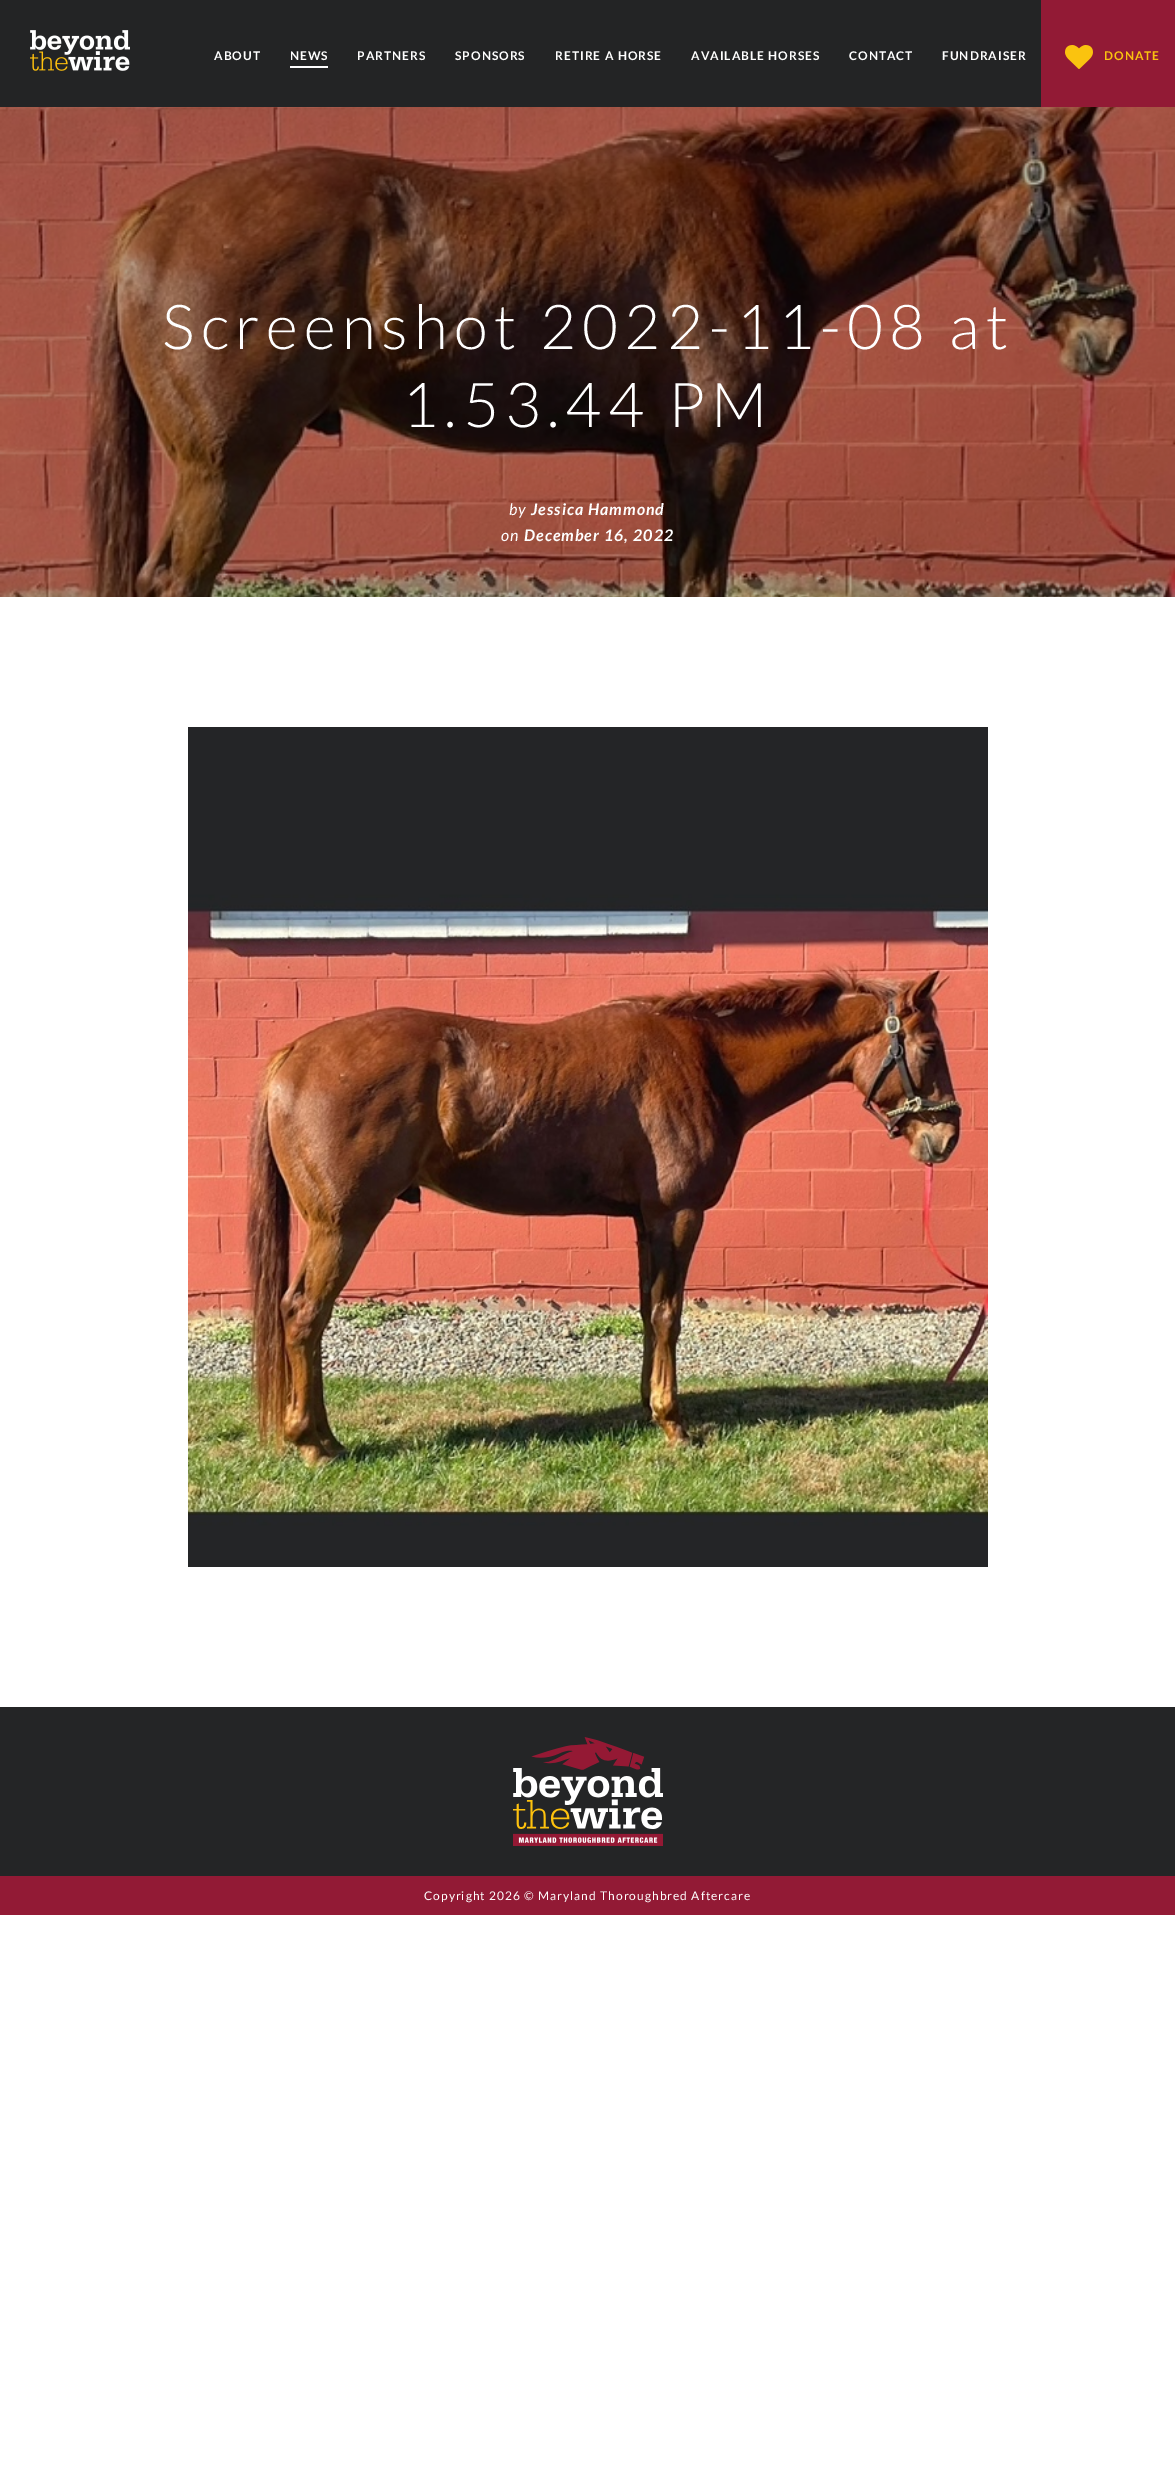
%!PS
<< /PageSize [1175 2485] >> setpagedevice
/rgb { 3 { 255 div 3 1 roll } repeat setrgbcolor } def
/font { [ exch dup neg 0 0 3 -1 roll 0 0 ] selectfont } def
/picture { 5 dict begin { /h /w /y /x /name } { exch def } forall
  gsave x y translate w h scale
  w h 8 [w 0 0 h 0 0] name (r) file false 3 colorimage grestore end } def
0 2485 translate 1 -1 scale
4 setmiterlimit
255 255 255 rgb
0 0 1175 2485 rectfill
35 36 37 rgb
0 0 1041 107 rectfill
(img_01.rgb) 30 30 100 41 picture
255 255 255 rgb
290 66 38 2 rectfill
146 26 53 rgb
1041 0 134 107 rectfill
(img_02.rgb) 1065 45 28 24 picture
(img_03.rgb) 0 107 1175 490 picture
(img_04.rgb) 188 727 800 840 picture
36 37 38 rgb
0 1707 1175 169 rectfill
(img_05.rgb) 513 1737 150 109 picture
146 26 53 rgb
0 1876 1175 39 rectfill
/Lato-Bold 12 font
255 255 255 rgb
214 60 moveto 1 0 (ABOUT) ashow
290 60 moveto 1 0 (NEWS) ashow
357 60 moveto 1 0 (PARTNERS) ashow
455 60 moveto 1 0 (SPONSORS) ashow
555 60 moveto 1 0 (RETIRE A HORSE) ashow
691 60 moveto 1 0 (AVAILABLE HORSES) ashow
849 60 moveto 1 0 (CONTACT) ashow
942 60 moveto 1 0 (FUNDRAISER) ashow
250 195 15 rgb
1104 60 moveto 1 0 (DONATE) ashow
/Lato-Light 62 font
255 255 255 rgb
162 349 moveto 6.2 0 (Screenshot 2022-11-08 at) ashow
402 427 moveto 6.2 0 (1.53.44 PM) ashow
/Lato-Italic 16 font
509 515 moveto 1 0 (by) ashow
/Lato-BoldItalic 16 font
531 515 moveto 1 0 (Jessica Hammond) ashow
/Lato-Italic 16 font
501 541 moveto 1 0 (on) ashow
/Lato-BoldItalic 16 font
524 541 moveto 1 0 (December 16, 2022) ashow
/Lato-Regular 12 font
424 1900 moveto 1 0 (Copyright 2026 © Maryland Thoroughbred Aftercare) ashow
showpage
